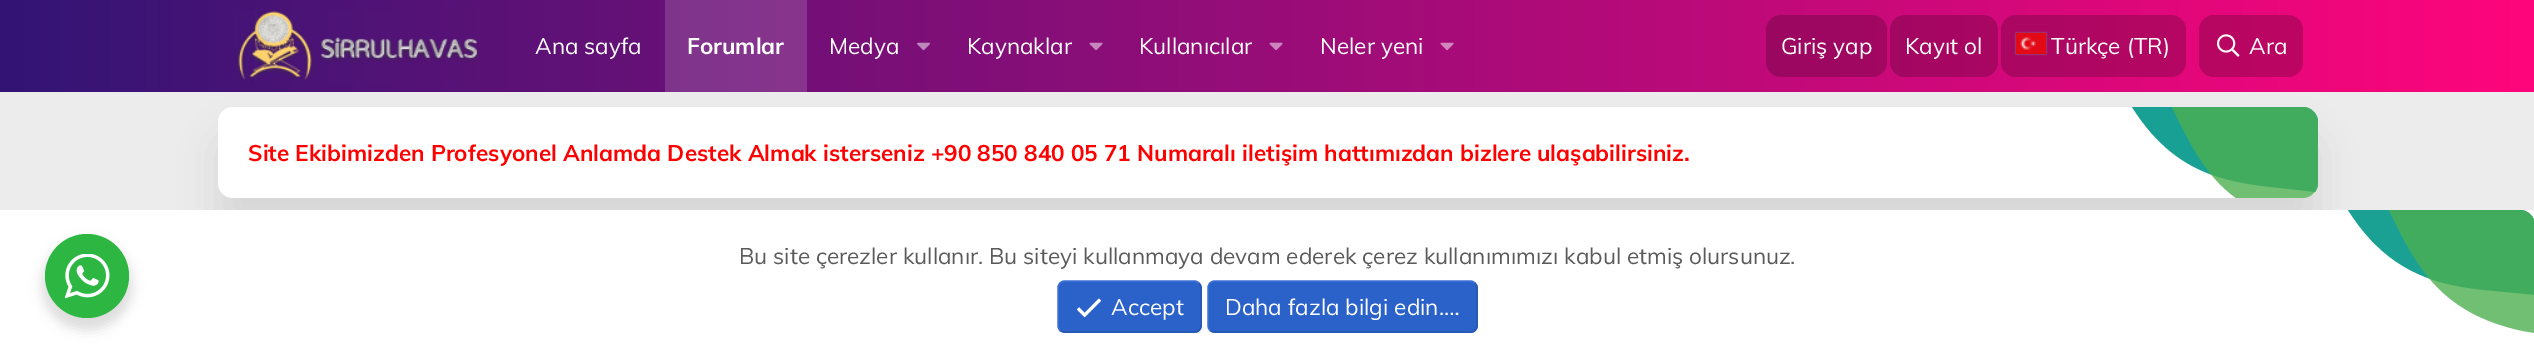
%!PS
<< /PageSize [2534 362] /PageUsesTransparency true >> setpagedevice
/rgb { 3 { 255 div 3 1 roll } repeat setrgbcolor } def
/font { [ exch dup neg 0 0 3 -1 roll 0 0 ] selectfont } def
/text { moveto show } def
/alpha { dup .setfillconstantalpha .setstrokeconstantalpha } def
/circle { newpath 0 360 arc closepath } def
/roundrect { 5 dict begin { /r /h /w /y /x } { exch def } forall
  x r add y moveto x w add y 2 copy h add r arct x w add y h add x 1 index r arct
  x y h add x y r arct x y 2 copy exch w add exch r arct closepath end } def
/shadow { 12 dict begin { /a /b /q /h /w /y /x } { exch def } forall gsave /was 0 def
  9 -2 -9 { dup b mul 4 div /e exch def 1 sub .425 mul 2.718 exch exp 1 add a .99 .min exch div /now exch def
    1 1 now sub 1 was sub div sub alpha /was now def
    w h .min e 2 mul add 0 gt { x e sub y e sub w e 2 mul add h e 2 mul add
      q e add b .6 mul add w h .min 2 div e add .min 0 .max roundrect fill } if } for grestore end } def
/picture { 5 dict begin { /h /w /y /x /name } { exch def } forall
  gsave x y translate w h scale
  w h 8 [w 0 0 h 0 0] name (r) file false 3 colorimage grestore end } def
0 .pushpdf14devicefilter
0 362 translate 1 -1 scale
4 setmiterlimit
236 236 236 rgb
0 0 2534 362 rectfill
0 0 0 rgb
218 137 2100 91 15 19 0.08 shadow
gsave 0 0 moveto 2534 0 rlineto 0 92 rlineto -2534 0 rlineto closepath clip newpath
<< /ShadingType 2 /ColorSpace /DeviceRGB /Coords [0 46 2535 46] /Extend [true true] /Function << /FunctionType 2 /Domain [0 1] /C0 [0.196 0.082 0.459] /C1 [1 0.02 0.486] /N 1 >> >> shfill grestore
gsave 665 0 moveto 142 0 rlineto 0 92 rlineto -142 0 rlineto closepath clip newpath
<< /ShadingType 2 /ColorSpace /DeviceRGB /Coords [0 46 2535 46] /Extend [true true] /Function << /FunctionType 2 /Domain [0 1] /C0 [0.318 0.22 0.541] /C1 [1 0.169 0.565] /N 1 >> >> shfill grestore
(img_01.rgb) 236 10 244 72 picture
(img_02.rgb) 917 42 13 9 picture
(img_03.rgb) 1089 42 14 9 picture
(img_04.rgb) 1269 42 14 9 picture
(img_05.rgb) 1440 42 14 9 picture
0.2 alpha
1766 15 121 62 15 roundrect fill
1890 15 108 62 15 roundrect fill
2001 15 185 62 15 roundrect fill
1 alpha
136 136 136 rgb
2016 33 30 21 0 1 1 shadow
(img_06.rgb) 2016 33 30 21 picture
0.2 alpha
0 0 0 rgb
2199 15 104 62 15 roundrect fill
1 alpha
(img_07.rgb) 2217 34 23 23 picture
255 255 255 rgb
218 107 2100 91 15 roundrect fill
0.9 alpha
0 150 136 rgb
2315 192 moveto -8 -1 rlineto -64 -8 -125 -5 -175 -84 rcurveto 171 0 rlineto 8 0 15 7 15 15 rcurveto 0 61 rlineto 0 3 -1 6 -3 9 rcurveto closepath fill
0.8 alpha
76 175 80 rgb
2236 198 moveto -31 -22 -48 -58 -64 -91 rcurveto 131 0 rlineto 8 0 15 7 15 15 rcurveto 0 61 rlineto 0 8 -7 15 -15 15 rcurveto closepath fill
1 alpha
255 255 255 rgb
0 210 2534 152 rectfill
0 0 0 rgb
42 240 90 90 45 6 0.14 shadow
45 183 66 rgb
87 276 42 circle fill
(img_08.rgb) 65 254 45 45 picture
26 161 148 rgb
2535 295 moveto -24 -3 -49 -4 -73 -8 rcurveto -52 -9 -86 -33 -114 -77 rcurveto 172 0 rlineto 8 0 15 7 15 15 rcurveto closepath fill
0.8 alpha
76 175 80 rgb
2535 333 moveto 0 -108 rlineto 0 -8 -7 -15 -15 -15 rcurveto -131 0 rlineto 26 53 49 103 134 121 rcurveto closepath fill
1 alpha
43 98 201 rgb
1058 281 144 52 8 roundrect fill
39 88 180 rgb
1.5 setlinewidth
1199 283 moveto 1 1.5 2 3 2 5 rcurveto 0 37.5 rlineto 0 2 -1 3.5 -2 5 rcurveto -1.5 1 -3 1.5 -5 1.5 rcurveto -129 0 rlineto -2 0 -3.5 -0.5 -5 -1.5 rcurveto stroke
57 111 213 rgb
1060 330.5 moveto -1 -1.5 -2 -3 -2 -5 rcurveto 0 -37.5 rlineto 0 -2 1 -3.5 2 -5 rcurveto 1.5 -1 3 -2 5 -2 rcurveto 129 0 rlineto 2 0 3.5 1 5 2 rcurveto stroke
(img_09.rgb) 1077 298 24 20 picture
43 98 201 rgb
1208 281 270 52 8 roundrect fill
39 88 180 rgb
1475 283 moveto 1 1.5 2 3 2 5 rcurveto 0 37.5 rlineto 0 2 -1 3.5 -2 5 rcurveto -1.5 1 -3 1.5 -5 1.5 rcurveto -255 0 rlineto -2 0 -3.5 -0.5 -5 -1.5 rcurveto stroke
57 111 213 rgb
1210 330.5 moveto -1 -1.5 -2 -3 -2 -5 rcurveto 0 -37.5 rlineto 0 -2 1 -3.5 2 -5 rcurveto 1.5 -1 3 -2 5 -2 rcurveto 255 0 rlineto 2 0 3.5 1 5 2 rcurveto stroke
/Muli-Regular 22.5 font
255 255 255 rgb
(Ana sayfa) 535 54 text
/Muli-Bold 22.5 font
(Forumlar) 687 54 text
/Muli-Regular 22.5 font
(Medya) 829 54 text
(Kaynaklar) 967 54 text
(Kullanıcılar) 1139 54 text
(Neler yeni) 1320 54 text
(Giriş yap) 1781 54 text
(Kayıt ol) 1905 54 text
(Türkçe \(TR\)) 2051 54 text
(Ara) 2249 54 text
/Muli-Bold 22.5 font
255 0 0 rgb
(Site Ekibimizden Profesyonel Anlamda Destek Almak isterseniz +90 850 840 05 71 Numaralı iletişim hattımızdan bizlere ulaşabilirsiniz.) 248 161 text
/Muli-Regular 22.5 font
90 90 90 rgb
(Bu site çerezler kullanır. Bu siteyi kullanmaya devam ederek çerez kullanımımızı kabul etmiş olursunuz.) 739 264 text
255 255 255 rgb
(Accept) 1111 315 text
(Daha fazla bilgi edin.…) 1225 315 text
.poppdf14devicefilter showpage
